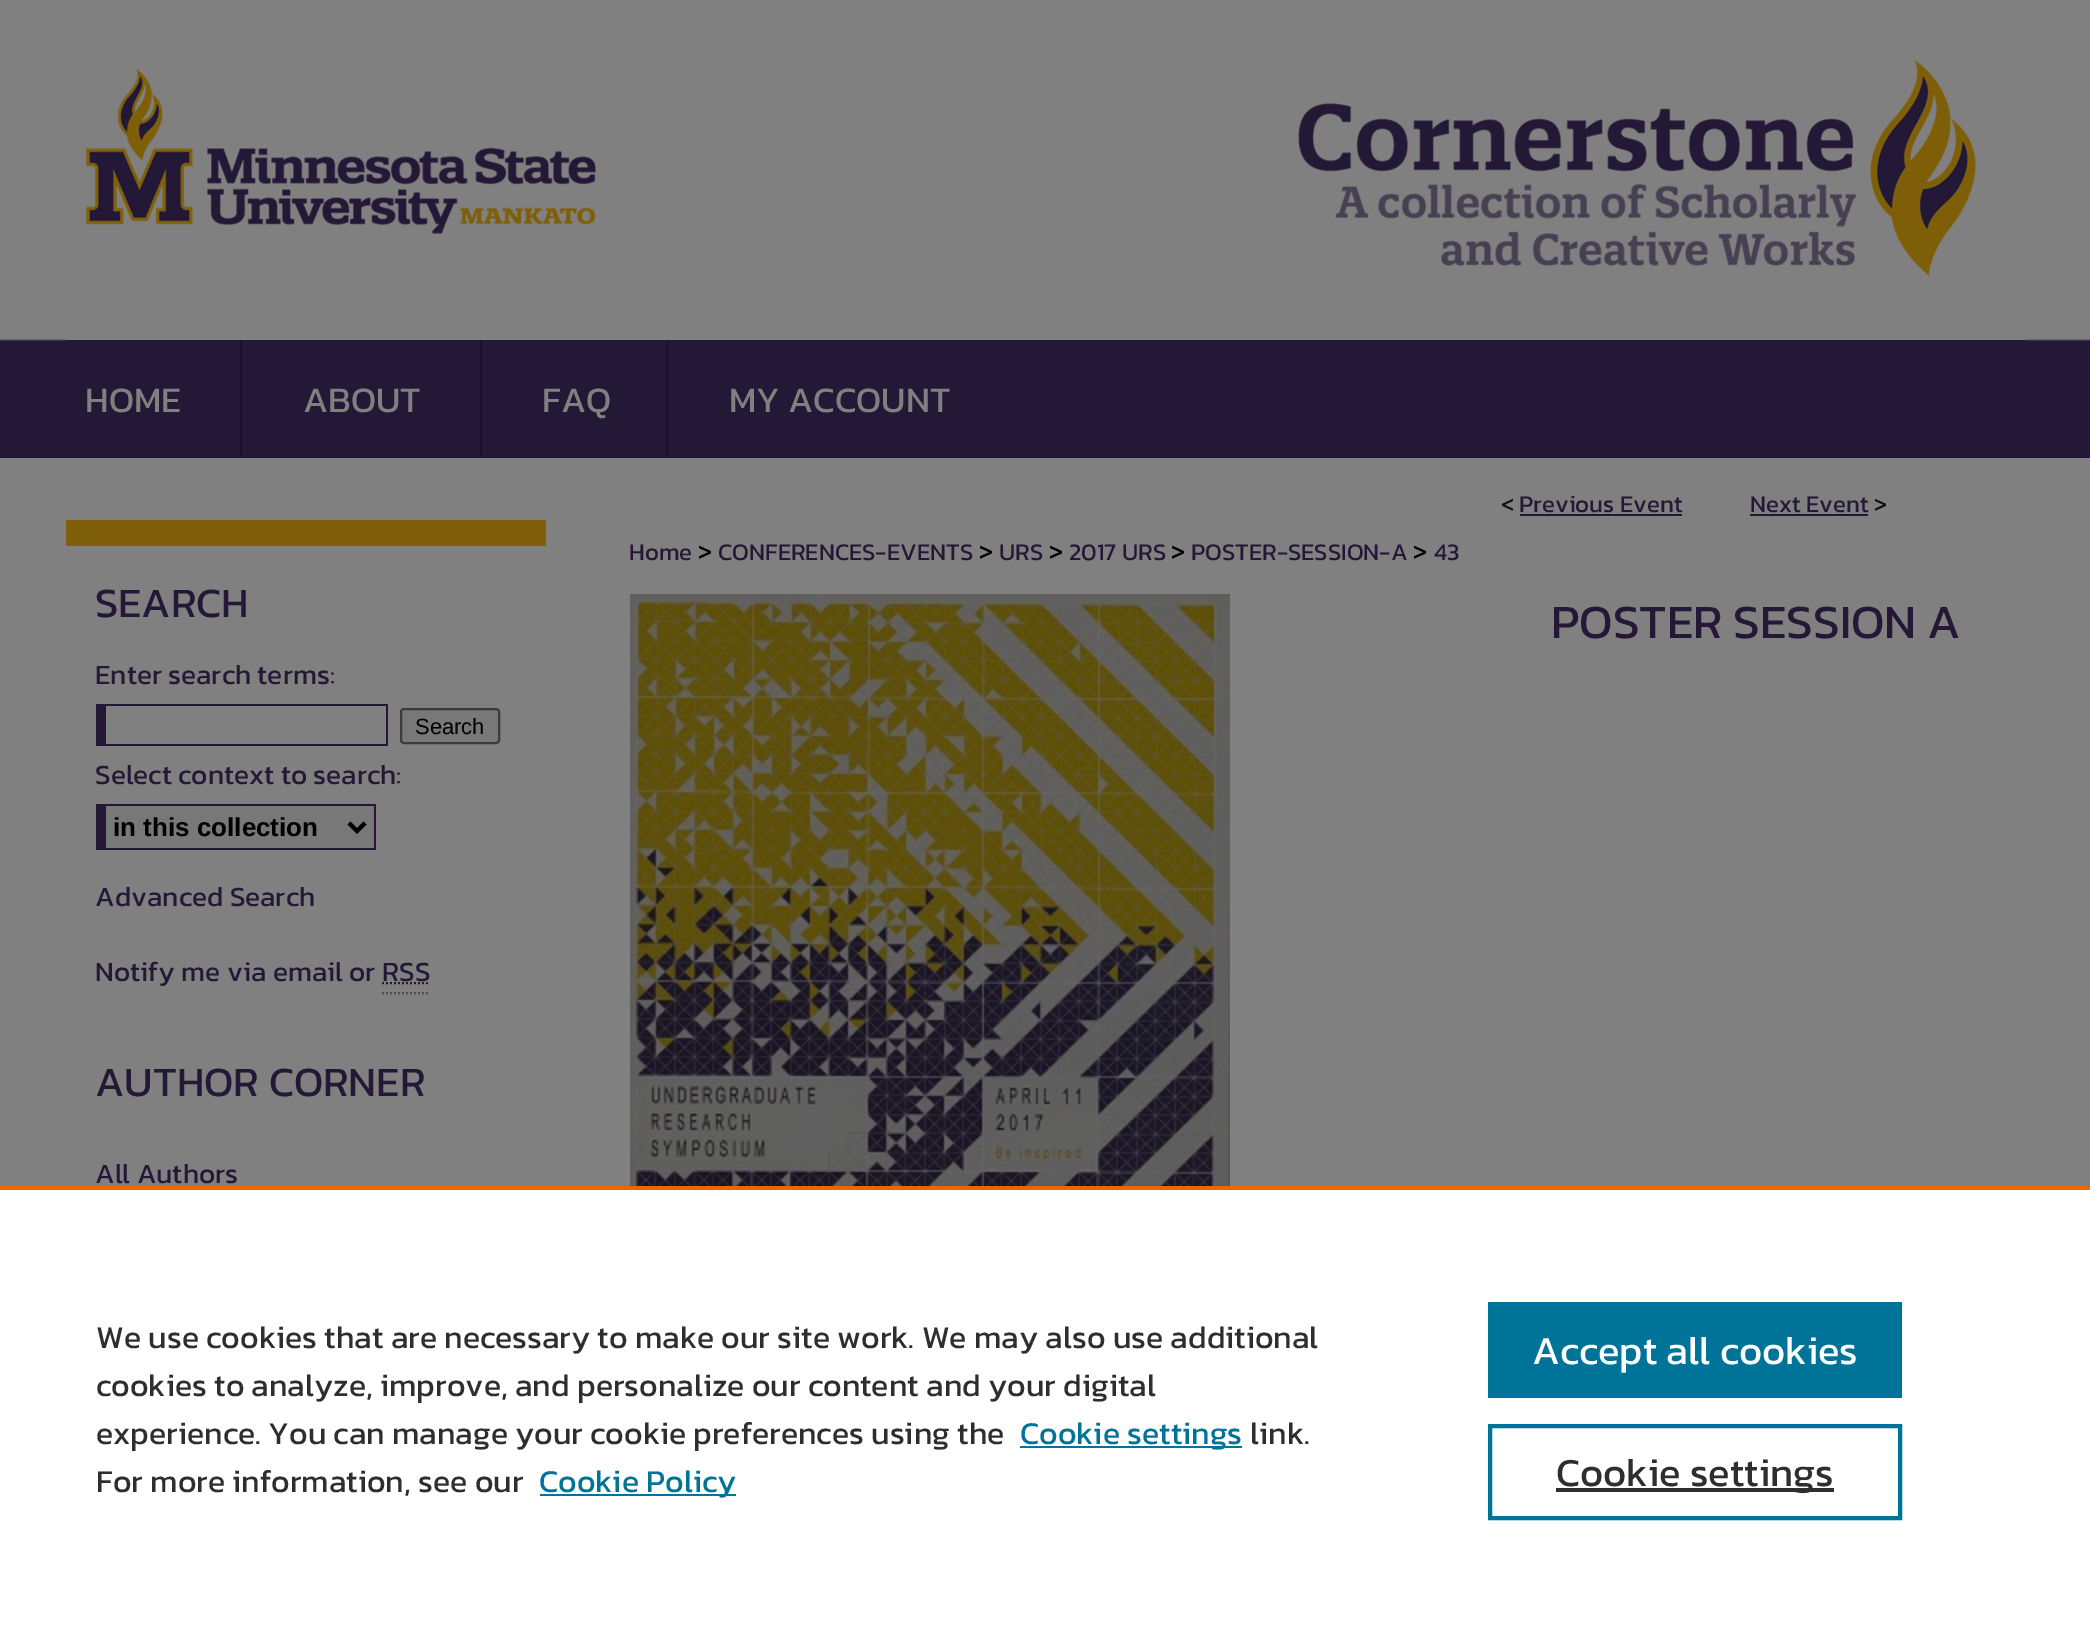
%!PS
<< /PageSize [2090 1626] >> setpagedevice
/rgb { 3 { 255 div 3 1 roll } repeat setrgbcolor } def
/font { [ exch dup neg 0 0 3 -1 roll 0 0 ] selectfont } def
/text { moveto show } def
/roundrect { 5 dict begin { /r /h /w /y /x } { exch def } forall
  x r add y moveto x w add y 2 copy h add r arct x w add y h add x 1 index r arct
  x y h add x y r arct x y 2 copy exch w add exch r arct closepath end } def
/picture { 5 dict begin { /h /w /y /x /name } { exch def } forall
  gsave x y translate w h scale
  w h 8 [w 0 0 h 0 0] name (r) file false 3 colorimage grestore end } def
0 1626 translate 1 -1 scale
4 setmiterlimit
128 128 128 rgb
0 0 2090 1626 rectfill
(img_01.rgb) 0 339 2090 119 picture
66 339 1960 1 rectfill
(img_02.rgb) 86 60 1890 216 picture
37 24 55 rgb
66 340 1960 1 rectfill
28 17 43 rgb
240 340 2 118 rectfill
480 340 2 118 rectfill
666 340 2 118 rectfill
37 24 55 rgb
1520 514 162 2 rectfill
1750 514 118 2 rectfill
(img_03.rgb) 630 594 600 592 picture
127 95 9 rgb
66 520 480 26 rectfill
37 24 55 rgb
106 704 282 2 rectfill
386 704 2 42 rectfill
106 744 282 2 rectfill
96 704 10 42 rectfill
120 120 120 rgb
401 709 98 34 3 roundrect gsave fill grestore
59 59 59 rgb
2 setlinewidth
stroke
120 120 120 rgb
106 806 268 42 rectfill
37 24 55 rgb
106 804 270 2 rectfill
374 804 2 46 rectfill
106 848 270 2 rectfill
96 804 10 46 rectfill
0 0 0 rgb
4 setlinewidth
349 823 moveto 8 8 rlineto 8 -8 rlineto stroke
37 24 55 rgb
2 setlinewidth
[2 2] 0 setdash
382 983 moveto 48 0 rlineto stroke
77 77 77 rgb
382 993 moveto 48 0 rlineto stroke
255 255 255 rgb
0 1190 2090 436 rectfill
235 101 0 rgb
0 1186 2090 4 rectfill
0 115 152 rgb
1020 1446 222 2 rectfill
540 1494 196 2 rectfill
1488 1302 414 96 rectfill
4 setlinewidth
[] 0 setdash
1490 1426 410 92 rectstroke
46 46 46 rgb
1556 1488 278 4 rectfill
/Kanit-Regular 36 font
128 128 128 rgb
(HOME) 85 412 text
(ABOUT) 303 412 text
(FAQ) 542 412 text
(MY ACCOUNT) 729 412 text
/Kanit-Regular 24 font
17 17 17 rgb
(<) 1501 512 text
37 24 55 rgb
(Previous Event) 1519 512 text
(Next Event) 1750 512 text
17 17 17 rgb
(>) 1874 512 text
37 24 55 rgb
(Home) 629 560 text
/Kanit-Regular 26 font
0 0 0 rgb
(>) 698 560 text
/Kanit-Regular 24 font
37 24 55 rgb
(CONFERENCES-EVENTS) 718 560 text
/Kanit-Regular 26 font
0 0 0 rgb
(>) 979 560 text
/Kanit-Regular 24 font
37 24 55 rgb
(URS) 999 560 text
/Kanit-Regular 26 font
0 0 0 rgb
(>) 1049 560 text
/Kanit-Regular 24 font
37 24 55 rgb
(2017 URS) 1069 560 text
/Kanit-Regular 26 font
0 0 0 rgb
(>) 1171 560 text
/Kanit-Regular 24 font
37 24 55 rgb
(POSTER-SESSION-A) 1191 560 text
/Kanit-Regular 26 font
0 0 0 rgb
(>) 1413 560 text
/Kanit-Regular 24 font
37 24 55 rgb
(43) 1434 560 text
/Kanit-Regular 48 font
(POSTER SESSION A) 1551 638 text
/Kanit-Regular 42 font
(SEARCH) 95 617 text
/Kanit-Regular 28 font
(Enter search terms:) 95 684 text
/LiberationSans-Regular 22 font
0 0 0 rgb
(Search) 415 734 text
/Kanit-Regular 28 font
37 24 55 rgb
(Select context to search:) 95 784 text
/LiberationSans-Bold 26 font
0 0 0 rgb
(in this collection) 113 836 text
/Kanit-Regular 28 font
37 24 55 rgb
(Advanced Search) 95 906 text
(Notify me via email or RSS) 95 981 text
/Kanit-Regular 42 font
(AUTHOR CORNER) 95 1096 text
/Kanit-Regular 28 font
(All Authors) 95 1183 text
/Kanit-Regular 32 font
46 46 46 rgb
(We use cookies that are necessary to make our site work. We may also use additional) 96 1348 text
(cookies to analyze, improve, and personalize our content and your digital) 96 1396 text
(experience. You can manage your cookie preferences using the) 96 1444 text
0 115 152 rgb
(Cookie settings) 1020 1444 text
46 46 46 rgb
(link.) 1250 1444 text
(For more information, see our) 96 1492 text
0 115 152 rgb
(Cookie Policy) 539 1492 text
/Kanit-Regular 40 font
255 255 255 rgb
(Accept all cookies) 1532 1364 text
46 46 46 rgb
(Cookie settings) 1556 1486 text
showpage
